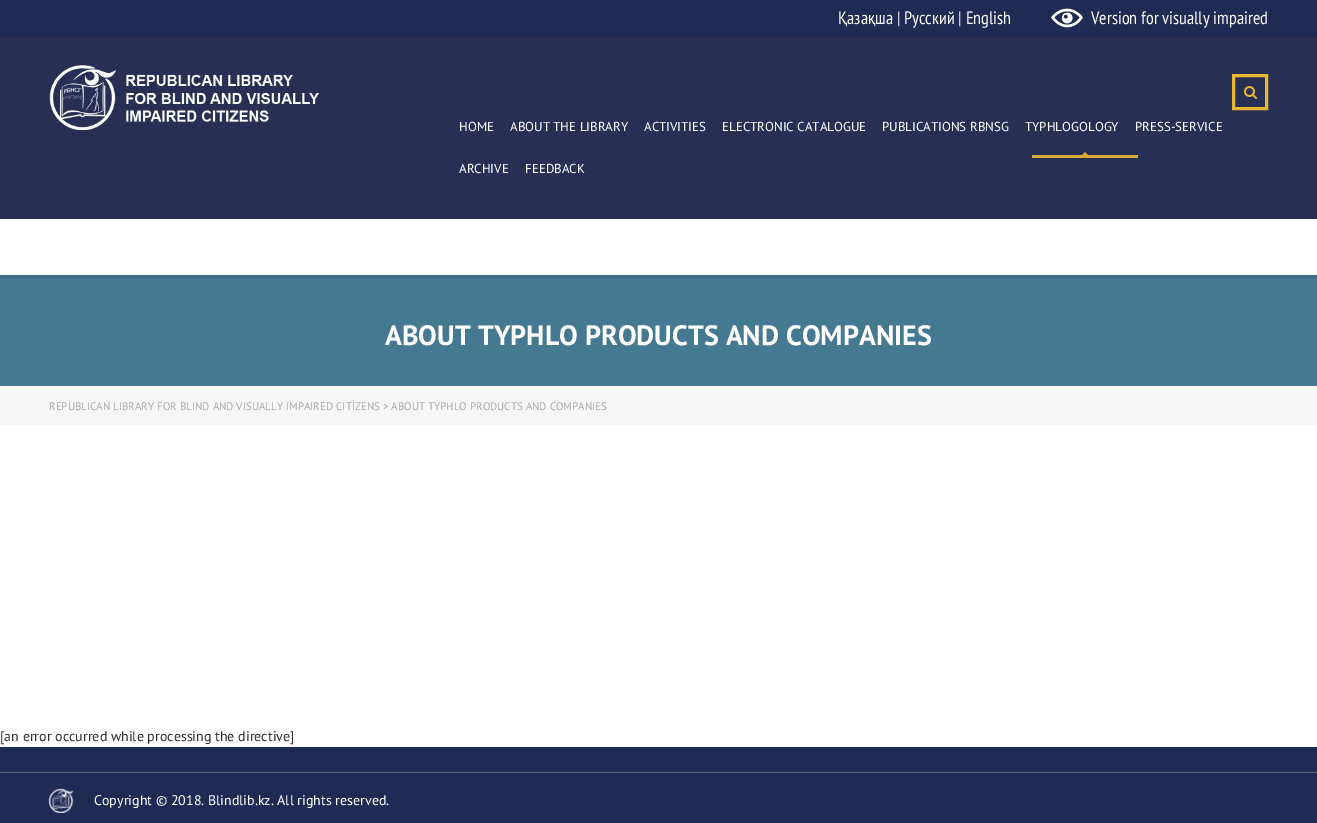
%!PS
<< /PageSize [1317 823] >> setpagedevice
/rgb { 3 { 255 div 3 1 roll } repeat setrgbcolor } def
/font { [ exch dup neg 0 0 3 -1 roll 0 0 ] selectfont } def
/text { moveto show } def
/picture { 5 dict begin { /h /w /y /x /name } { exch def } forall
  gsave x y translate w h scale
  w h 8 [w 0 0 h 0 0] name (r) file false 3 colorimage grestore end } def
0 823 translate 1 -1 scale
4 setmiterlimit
30 43 84 rgb
0 0 1317 823 rectfill
255 255 255 rgb
0 219 1317 528 rectfill
(img_01.rgb) 1051 8 32 20 picture
39 47 84 rgb
0 37 1317 182 rectfill
(img_02.rgb) 49 65 271 65 picture
234 184 48 rgb
3 setlinewidth
1233.5 75.5 33 33 rectstroke
(img_03.rgb) 1244 86 13 13 picture
215 170 52 rgb
1032 155 106 3 rectfill
1088 155 moveto -6 0 rlineto 3 -3 rlineto closepath fill
62 109 131 rgb
0 275 1317 3 rectfill
69 121 146 rgb
0 278 1317 108 rectfill
246 246 246 rgb
0 386 1317 38 rectfill
240 242 245 rgb
0 424 1317 1 rectfill
94 103 107 rgb
0 772 1317 1 rectfill
(img_04.rgb) 48 788 26 25 picture
/PTSansNarrow-Regular 18 font
255 255 255 rgb
(Қазақша | Русский | English) 838 24 text
(Version for visually impaired) 1091 24 text
/PTSans-Regular 13 font
(HOME) 459 131 text
(ABOUT THE LIBRARY) 510 131 text
(ACTIVITIES) 644 131 text
(ELECTRONIC CATALOGUE) 722 131 text
(PUBLICATIONS RBNSG) 882 131 text
(TYPHLOGOLOGY) 1025 131 text
(PRESS-SERVICE) 1135 131 text
(ARCHIVE) 459 173 text
(FEEDBACK) 525 173 text
/PTSans-Bold 28 font
(ABOUT TYPHLO PRODUCTS AND COMPANIES) 385 345 text
/PTSans-Regular 11 font
170 170 170 rgb
(REPUBLICAN LIBRARY FOR BLIND AND VISUALLY IMPAIRED CITIZENS > ABOUT TYPHLO PRODUCTS AND COMPANIES) 49 410 text
/PTSans-Regular 14 font
48 48 48 rgb
([an error occurred while processing the directive]) 0 741 text
255 255 255 rgb
(Copyright © 2018. Blindlib.kz. All rights reserved.) 94 805 text
showpage
